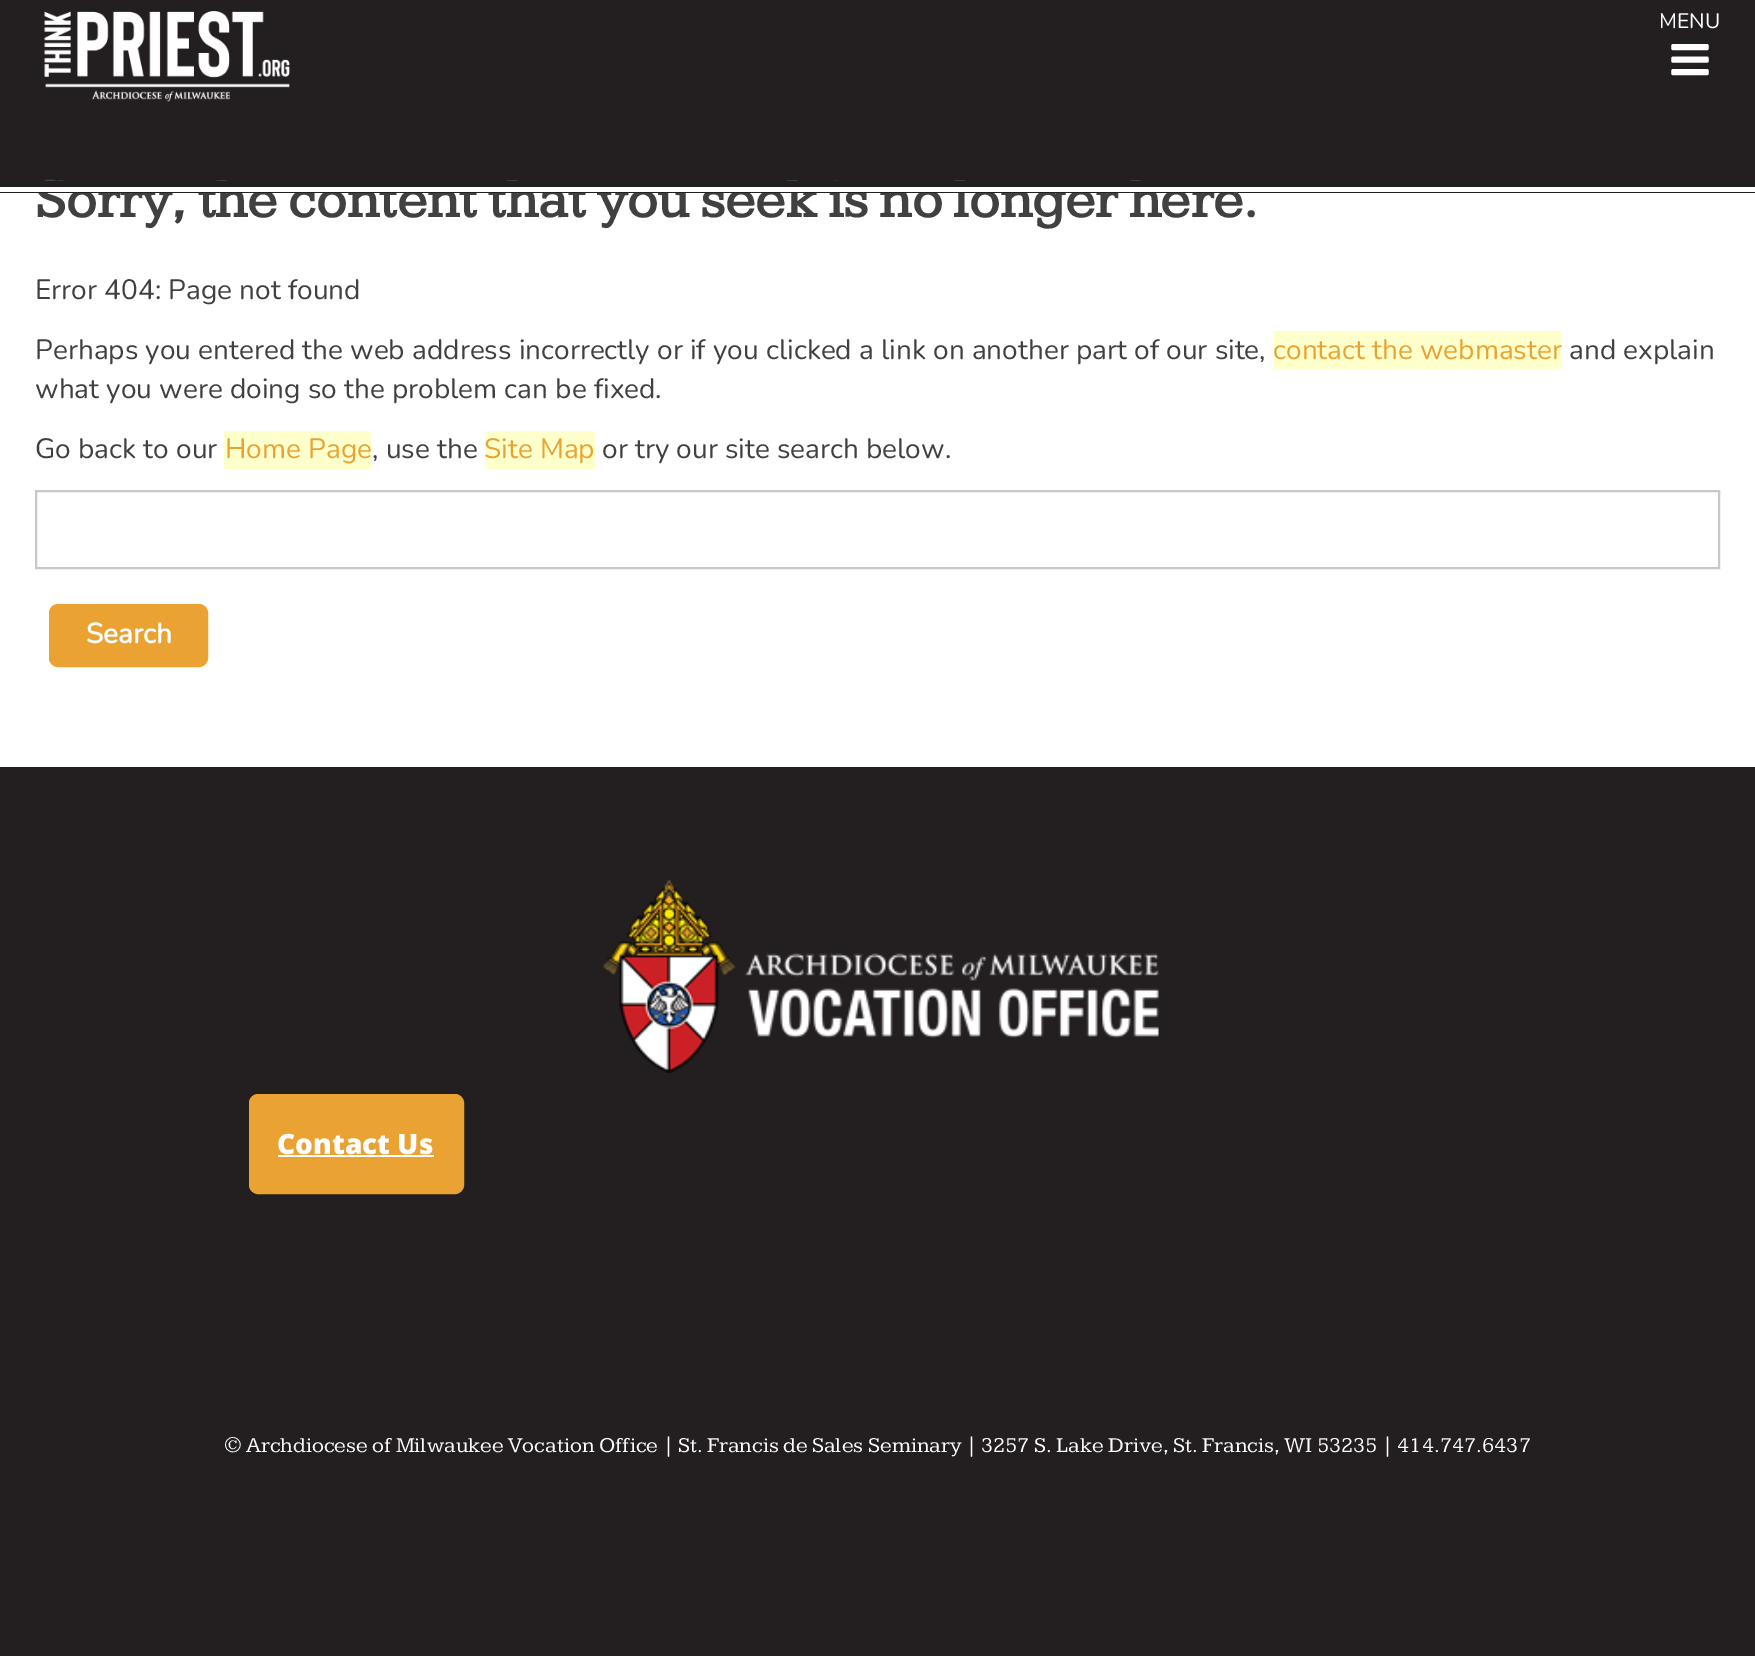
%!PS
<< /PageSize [1755 1656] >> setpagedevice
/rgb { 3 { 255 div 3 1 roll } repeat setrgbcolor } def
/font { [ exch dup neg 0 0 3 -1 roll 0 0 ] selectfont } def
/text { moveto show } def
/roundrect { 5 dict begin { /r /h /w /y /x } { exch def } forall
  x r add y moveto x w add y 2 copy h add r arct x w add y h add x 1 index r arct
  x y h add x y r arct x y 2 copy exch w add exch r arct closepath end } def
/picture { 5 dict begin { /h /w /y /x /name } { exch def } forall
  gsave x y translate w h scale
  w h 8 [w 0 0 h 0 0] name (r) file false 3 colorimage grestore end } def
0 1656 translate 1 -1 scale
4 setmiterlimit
35 31 32 rgb
0 0 1755 1656 rectfill
(img_01.rgb) 44 11 246 91 picture
(img_02.rgb) 1671 44 38 32 picture
255 255 255 rgb
0 193 1755 574 rectfill
255 255 204 rgb
1274 331 287 38 rectfill
224 431 147 38 rectfill
485 431 110 38 rectfill
200 200 200 rgb
2 setlinewidth
36 491 1683 77 rectstroke
234 162 51 rgb
50 605 157 61 8 roundrect gsave fill grestore
stroke
(img_03.rgb) 603 879 556 195 picture
251 1096 211 96 7 roundrect gsave fill grestore
4 setlinewidth
stroke
255 255 255 rgb
278 1155 156 2 rectfill
/Nunito-ExtraLight 21 font
(MENU) 1659 28 text
/Kameron-Bold 56 font
64 64 65 rgb
(Sorry, the content that you seek is no longer here.) 35 217 text
35 31 32 rgb
38 181 1196 12 rectfill
255 255 255 rgb
0 187 1755 5 rectfill
/Nunito-ExtraLight 28 font
64 64 65 rgb
(Error 404: Page not found) 35 299 text
(Perhaps you entered the web address incorrectly or if you clicked a link on another part of our site,) 35 359 text
234 162 51 rgb
(contact the webmaster) 1273 359 text
64 64 65 rgb
(and explain) 1569 359 text
(what you were doing so the problem can be fixed.) 35 398 text
(Go back to our) 35 458 text
234 162 51 rgb
(Home Page) 225 458 text
64 64 65 rgb
(, use the) 372 458 text
234 162 51 rgb
(Site Map) 484 458 text
64 64 65 rgb
(or try our site search below.) 602 458 text
/Nunito-Bold 28 font
255 255 255 rgb
(Search) 86 643 text
/OpenSans-ExtraBold 28 font
(Contact Us) 277 1154 text
/Kameron-Regular 21.88 font
(© Archdiocese of Milwaukee Vocation Office | St. Francis de Sales Seminary | 3257 S. Lake Drive, St. Francis, WI 53235 | 414.747.6437) 224 1452 text
showpage
